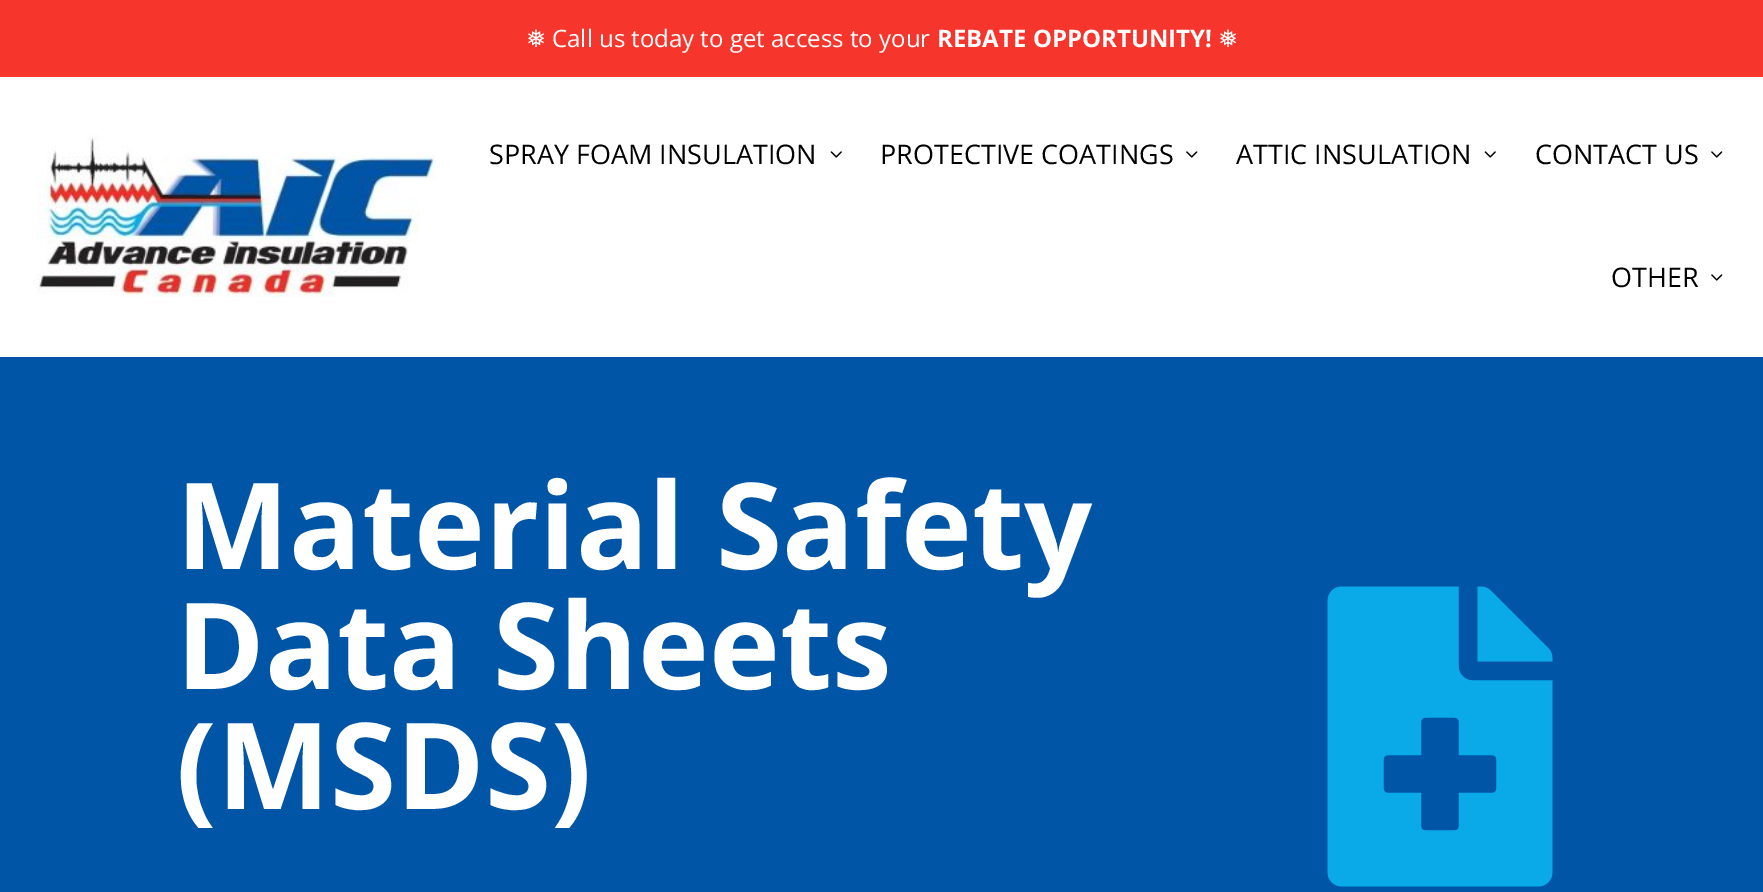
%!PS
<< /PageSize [1763 892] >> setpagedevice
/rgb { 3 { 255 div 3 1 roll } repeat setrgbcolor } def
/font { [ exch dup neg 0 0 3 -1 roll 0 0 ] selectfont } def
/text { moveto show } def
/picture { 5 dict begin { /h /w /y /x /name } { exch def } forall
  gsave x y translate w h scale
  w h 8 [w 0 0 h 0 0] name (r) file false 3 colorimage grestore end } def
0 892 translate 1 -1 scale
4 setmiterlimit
255 255 255 rgb
0 0 1763 892 rectfill
246 54 44 rgb
0 0 1763 77 rectfill
(img_01.rgb) 36 135 399 162 picture
(img_02.rgb) 830 151 12 7 picture
(img_03.rgb) 1186 151 12 7 picture
(img_02.rgb) 1484 151 12 7 picture
(img_03.rgb) 1711 151 12 7 picture
(img_03.rgb) 1711 274 12 7 picture
0 85 166 rgb
0 357 1763 535 rectfill
(img_04.rgb) 1327 586 226 301 picture
/DejaVuSans-Regular 24 font
255 255 255 rgb
(❅) 526 47 text
/OpenSans-Regular 24 font
(Call us today to get access to your) 552 47 text
/OpenSans-Bold 24 font
(REBATE OPPORTUNITY!) 937 47 text
/DejaVuSans-Regular 24 font
(❅) 1218 47 text
/OpenSans-Regular 27 font
0 0 0 rgb
(SPRAY FOAM INSULATION) 489 164 text
(PROTECTIVE COATINGS) 880 164 text
(ATTIC INSULATION) 1236 164 text
(CONTACT US) 1535 164 text
(OTHER) 1611 287 text
/OpenSans-Bold 120 font
255 255 255 rgb
(Material Safety) 176 569 text
(Data Sheets) 176 689 text
(\(MSDS\)) 176 809 text
showpage
